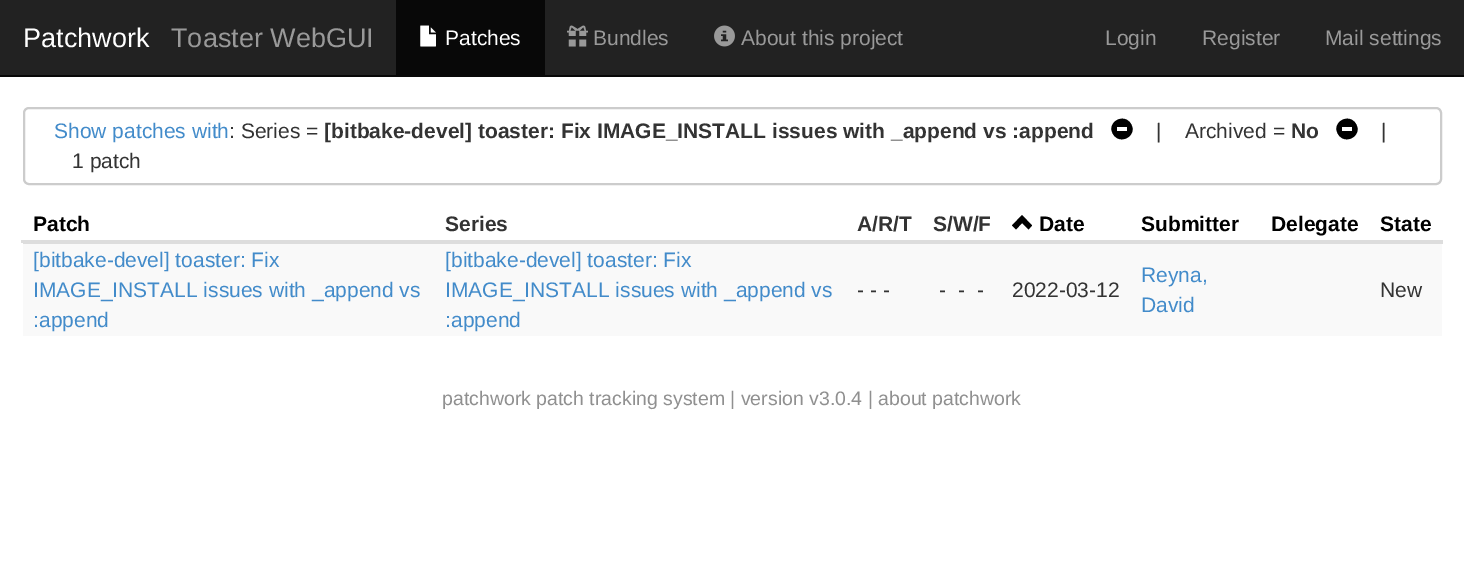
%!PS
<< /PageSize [1464 575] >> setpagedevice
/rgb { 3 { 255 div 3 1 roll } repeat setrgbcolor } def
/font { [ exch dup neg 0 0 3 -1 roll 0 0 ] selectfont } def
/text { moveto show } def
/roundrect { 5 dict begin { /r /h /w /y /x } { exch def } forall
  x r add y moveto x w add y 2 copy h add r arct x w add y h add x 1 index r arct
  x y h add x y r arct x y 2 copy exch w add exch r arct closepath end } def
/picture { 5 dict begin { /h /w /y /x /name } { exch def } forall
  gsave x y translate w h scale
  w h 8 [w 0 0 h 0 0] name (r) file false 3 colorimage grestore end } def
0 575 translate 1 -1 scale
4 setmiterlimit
255 255 255 rgb
0 0 1464 575 rectfill
34 34 34 rgb
0 0 1464 75 rectfill
8 8 8 rgb
0 75 1464 2 rectfill
396 0 149 75 rectfill
(img_01.rgb) 420 25 16 22 picture
(img_02.rgb) 567 25 21 22 picture
(img_03.rgb) 714 25 21 22 picture
204 204 204 rgb
2 setlinewidth
24 108 1417 76 5 roundrect stroke
0 0 0 rgb
1113 134 moveto -7 -11.5 11 -22 18 -10 rcurveto 7 11.5 -11 22 -18 10 rcurveto closepath 1117 131 moveto 10 0 rlineto 0 -4 rlineto -10 0 rlineto closepath fill
1338 134 moveto -7 -11.5 11 -22 18 -10 rcurveto 7 11.5 -11 22 -18 10 rcurveto closepath 1342 131 moveto 10 0 rlineto 0 -4 rlineto -10 0 rlineto closepath fill
1012 225.5 moveto 4 4 rlineto 6 -6.5 rlineto 6.5 6.5 rlineto 3.5 -4 rlineto -10 -10.5 rlineto closepath fill
221 221 221 rgb
21 240 1422 3 rectfill
249 249 249 rgb
23 244 1419 92 rectfill
221 221 221 rgb
23 243 1420 1 rectfill
/LiberationSans-Regular 27 font
255 255 255 rgb
(Patchwork) 23 47 text
153 153 153 rgb
(Toaster WebGUI) 171 47 text
/LiberationSans-Regular 21 font
255 255 255 rgb
(Patches) 445 45 text
153 153 153 rgb
(Bundles) 593 45 text
(About this project) 741 45 text
(Login) 1105 45 text
(Register) 1202 45 text
(Mail settings) 1325 45 text
66 139 202 rgb
(Show patches with) 54 138 text
51 51 51 rgb
(: Series =) 229 138 text
/LiberationSans-Bold 21 font
([bitbake-devel] toaster: Fix IMAGE_INSTALL issues with _append vs :append) 324 138 text
/LiberationSans-Regular 21 font
(|) 1156 138 text
(Archived =) 1185 138 text
/LiberationSans-Bold 21 font
(No) 1291 138 text
/LiberationSans-Regular 21 font
(|) 1381 138 text
(1 patch) 72 168 text
/LiberationSans-Bold 21 font
0 0 0 rgb
(Patch) 33 231 text
51 51 51 rgb
(Series) 445 231 text
(A/R/T) 857 231 text
(S/W/F) 933 231 text
0 0 0 rgb
(Date) 1039 231 text
(Submitter) 1141 231 text
(Delegate) 1271 231 text
(State) 1380 231 text
/LiberationSans-Regular 21 font
66 139 202 rgb
([bitbake-devel] toaster: Fix) 33 267 text
(IMAGE_INSTALL issues with _append vs) 33 297 text
(:append) 33 327 text
([bitbake-devel] toaster: Fix) 445 267 text
(IMAGE_INSTALL issues with _append vs) 445 297 text
(:append) 445 327 text
51 51 51 rgb
(- - -) 857 297 text
(-) 939 297 text
(-) 958 297 text
(-) 977 297 text
(2022-03-12) 1012 297 text
66 139 202 rgb
(Reyna,) 1141 282 text
(David) 1141 312 text
51 51 51 rgb
(New) 1380 297 text
/LiberationSans-Regular 19.5 font
144 144 144 rgb
(patchwork patch tracking system | version v3.0.4 | about patchwork) 442 405 text
showpage
